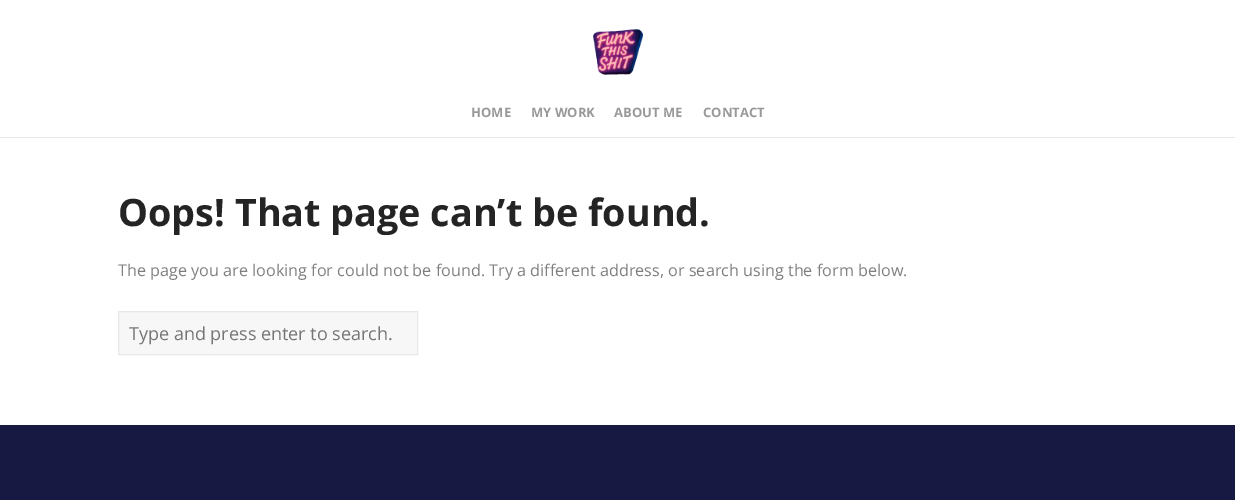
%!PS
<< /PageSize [1235 500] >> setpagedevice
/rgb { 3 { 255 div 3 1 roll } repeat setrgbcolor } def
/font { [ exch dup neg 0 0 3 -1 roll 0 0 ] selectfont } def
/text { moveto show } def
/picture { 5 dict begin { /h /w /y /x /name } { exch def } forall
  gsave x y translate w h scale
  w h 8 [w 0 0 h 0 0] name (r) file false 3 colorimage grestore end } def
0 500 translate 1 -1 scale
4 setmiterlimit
255 255 255 rgb
0 0 1235 500 rectfill
230 230 230 rgb
0 137 1235 1 rectfill
(img_01.rgb) 593 29 50 46 picture
247 247 247 rgb
118.5 311.5 moveto 299 0 rlineto 0 43 rlineto -299 0 rlineto closepath gsave fill grestore
232 232 232 rgb
stroke
23 25 66 rgb
0 425 1235 75 rectfill
/OpenSans-Bold 13 font
153 153 153 rgb
(HOME) 471 117 text
(MY WORK) 531 117 text
(ABOUT ME) 614 117 text
(CONTACT) 703 117 text
/OpenSans-Bold 37.75 font
36 36 36 rgb
(Oops! That page can’t be found.) 118 226 text
/OpenSans-Regular 16.2 font
127 127 127 rgb
(The page you are looking for could not be found. Try a different address, or search using the form below.) 118 276 text
/OpenSans-Regular 18 font
117 117 117 rgb
(Type and press enter to search.) 129 340 text
showpage
